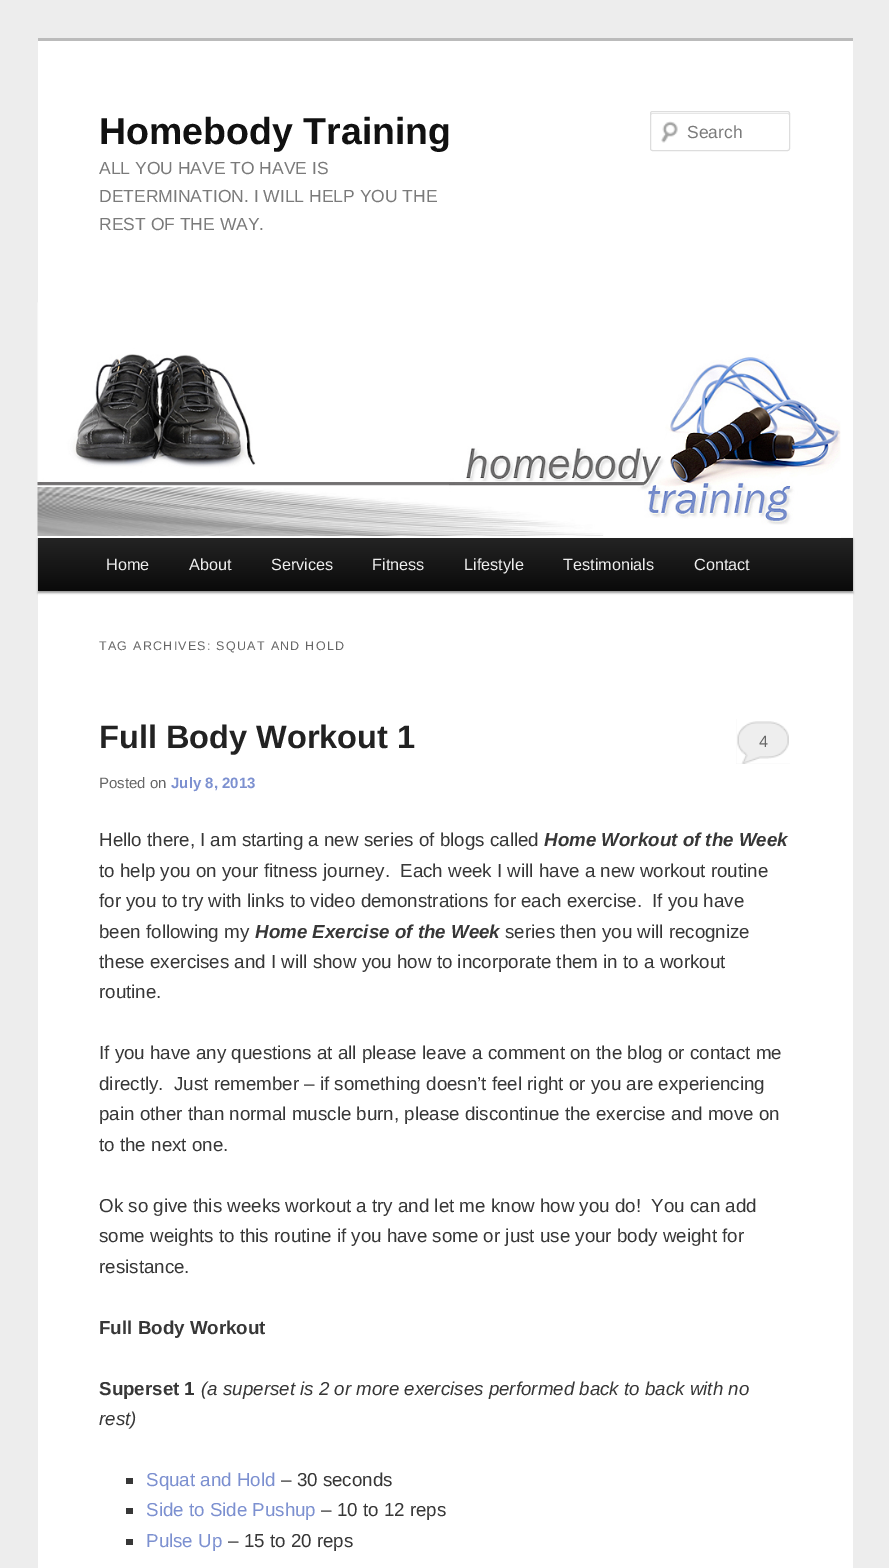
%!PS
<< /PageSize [889 1568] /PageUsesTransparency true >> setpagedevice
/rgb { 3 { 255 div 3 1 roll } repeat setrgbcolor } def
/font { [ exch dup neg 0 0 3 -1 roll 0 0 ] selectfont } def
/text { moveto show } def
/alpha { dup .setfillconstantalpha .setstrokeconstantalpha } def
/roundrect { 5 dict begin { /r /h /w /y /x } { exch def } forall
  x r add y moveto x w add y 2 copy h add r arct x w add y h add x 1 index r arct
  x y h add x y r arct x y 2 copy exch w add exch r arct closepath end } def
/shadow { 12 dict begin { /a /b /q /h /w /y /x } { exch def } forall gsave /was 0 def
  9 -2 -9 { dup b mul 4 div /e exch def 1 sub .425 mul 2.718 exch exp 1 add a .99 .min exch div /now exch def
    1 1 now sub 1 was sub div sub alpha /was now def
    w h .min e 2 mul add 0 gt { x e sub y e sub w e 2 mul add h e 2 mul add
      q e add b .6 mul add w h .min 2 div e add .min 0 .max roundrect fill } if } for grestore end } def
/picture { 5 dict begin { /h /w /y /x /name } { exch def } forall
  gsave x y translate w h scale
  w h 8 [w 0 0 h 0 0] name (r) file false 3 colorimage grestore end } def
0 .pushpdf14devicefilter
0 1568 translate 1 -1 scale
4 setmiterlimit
237 237 237 rgb
0 0 889 1568 rectfill
255 255 255 rgb
38 41 815 1527 rectfill
187 187 187 rgb
38 38 815 3 rectfill
(img_01.rgb) 661 121 17 22 picture
230 230 230 rgb
652 114 moveto 136 0 rlineto 1 1 rlineto 0 -1 0 -2 -1 -2 rcurveto -136 0 rlineto -1 0 -1 1 -1 2 rcurveto closepath fill
221 221 221 rgb
650.5 111.5 139 39 2 roundrect stroke
0 0 0 rgb
38 539 815 54 0 1 0.4 shadow
(img_02.rgb) 37 302 804 236 picture
gsave 38 538 moveto 815 0 rlineto 0 53 rlineto -815 0 rlineto closepath clip newpath
<< /ShadingType 2 /ColorSpace /DeviceRGB /Coords [445 537 445 591] /Extend [true true] /Function << /FunctionType 2 /Domain [0 1] /C0 [0.145 0.145 0.145] /C1 [0.039 0.039 0.039] /N 1 >> >> shfill grestore
238 238 238 rgb
736 719 54 45 rectfill
(img_03.rgb) 736 719 54 45 picture
55 55 55 rgb
126 1478 7 6 rectfill
126 1508 7 6 rectfill
126 1539 7 6 rectfill
/LiberationSans-Bold 37.5 font
17 17 17 rgb
(Homebody Training) 99 144 text
/LiberationSans-Regular 17.5 font
122 122 122 rgb
(ALL YOU HAVE TO HAVE IS) 99 174 text
(DETERMINATION. I WILL HELP YOU THE) 99 202 text
(REST OF THE WAY.) 99 230 text
(Search) 687 138 text
/LiberationSans-Regular 16.25 font
238 238 238 rgb
(Home) 106 570 text
(About) 189 570 text
(Services) 271 570 text
(Fitness) 372 570 text
(Lifestyle) 464 570 text
(Testimonials) 563 570 text
(Contact) 694 570 text
/LiberationSans-Regular 12.5 font
102 102 102 rgb
99 650 moveto 1.25 0 (TAG ARCHIVES: SQUAT AND HOLD) ashow
/LiberationSans-Bold 32.5 font
34 34 34 rgb
(Full Body Workout 1) 99 748 text
/LiberationSans-Regular 16.25 font
102 102 102 rgb
(4) 759 747 text
/LiberationSans-Regular 15 font
(Posted on) 99 788 text
/LiberationSans-Bold 15 font
124 144 208 rgb
(July 8, 2013) 171 788 text
/LiberationSans-Regular 18.75 font
55 55 55 rgb
(Hello there, I am starting a new series of blogs called) 99 846 text
/LiberationSans-BoldItalic 18.75 font
(Home Workout of the Week) 544 846 text
/LiberationSans-Regular 18.75 font
(to help you on your fitness journey.  Each week I will have a new workout routine) 99 877 text
(for you to try with links to video demonstrations for each exercise.  If you have) 99 907 text
(been following my) 99 938 text
/LiberationSans-BoldItalic 18.75 font
(Home Exercise of the Week) 255 938 text
/LiberationSans-Regular 18.75 font
(series then you will recognize) 505 938 text
(these exercises and I will show you how to incorporate them in to a workout) 99 968 text
(routine.) 99 998 text
(If you have any questions at all please leave a comment on the blog or contact me) 99 1059 text
(directly.  Just remember – if something doesn’t feel right or you are experiencing) 99 1090 text
(pain other than normal muscle burn, please discontinue the exercise and move on) 99 1120 text
(to the next one.) 99 1151 text
(Ok so give this weeks workout a try and let me know how you do!  You can add) 99 1212 text
(some weights to this routine if you have some or just use your body weight for) 99 1242 text
(resistance.) 99 1273 text
/LiberationSans-Bold 18.75 font
(Full Body Workout) 99 1334 text
(Superset 1) 99 1395 text
/LiberationSans-Italic 18.75 font
(\(a superset is 2 or more exercises performed back to back with no) 201 1395 text
(rest\)) 99 1425 text
/LiberationSans-Regular 18.75 font
124 144 208 rgb
(Squat and Hold) 146 1486 text
55 55 55 rgb
(– 30 seconds) 281 1486 text
124 144 208 rgb
(Side to Side Pushup) 146 1516 text
55 55 55 rgb
(– 10 to 12 reps) 321 1516 text
124 144 208 rgb
(Pulse Up) 146 1547 text
55 55 55 rgb
(– 15 to 20 reps) 228 1547 text
.poppdf14devicefilter showpage
